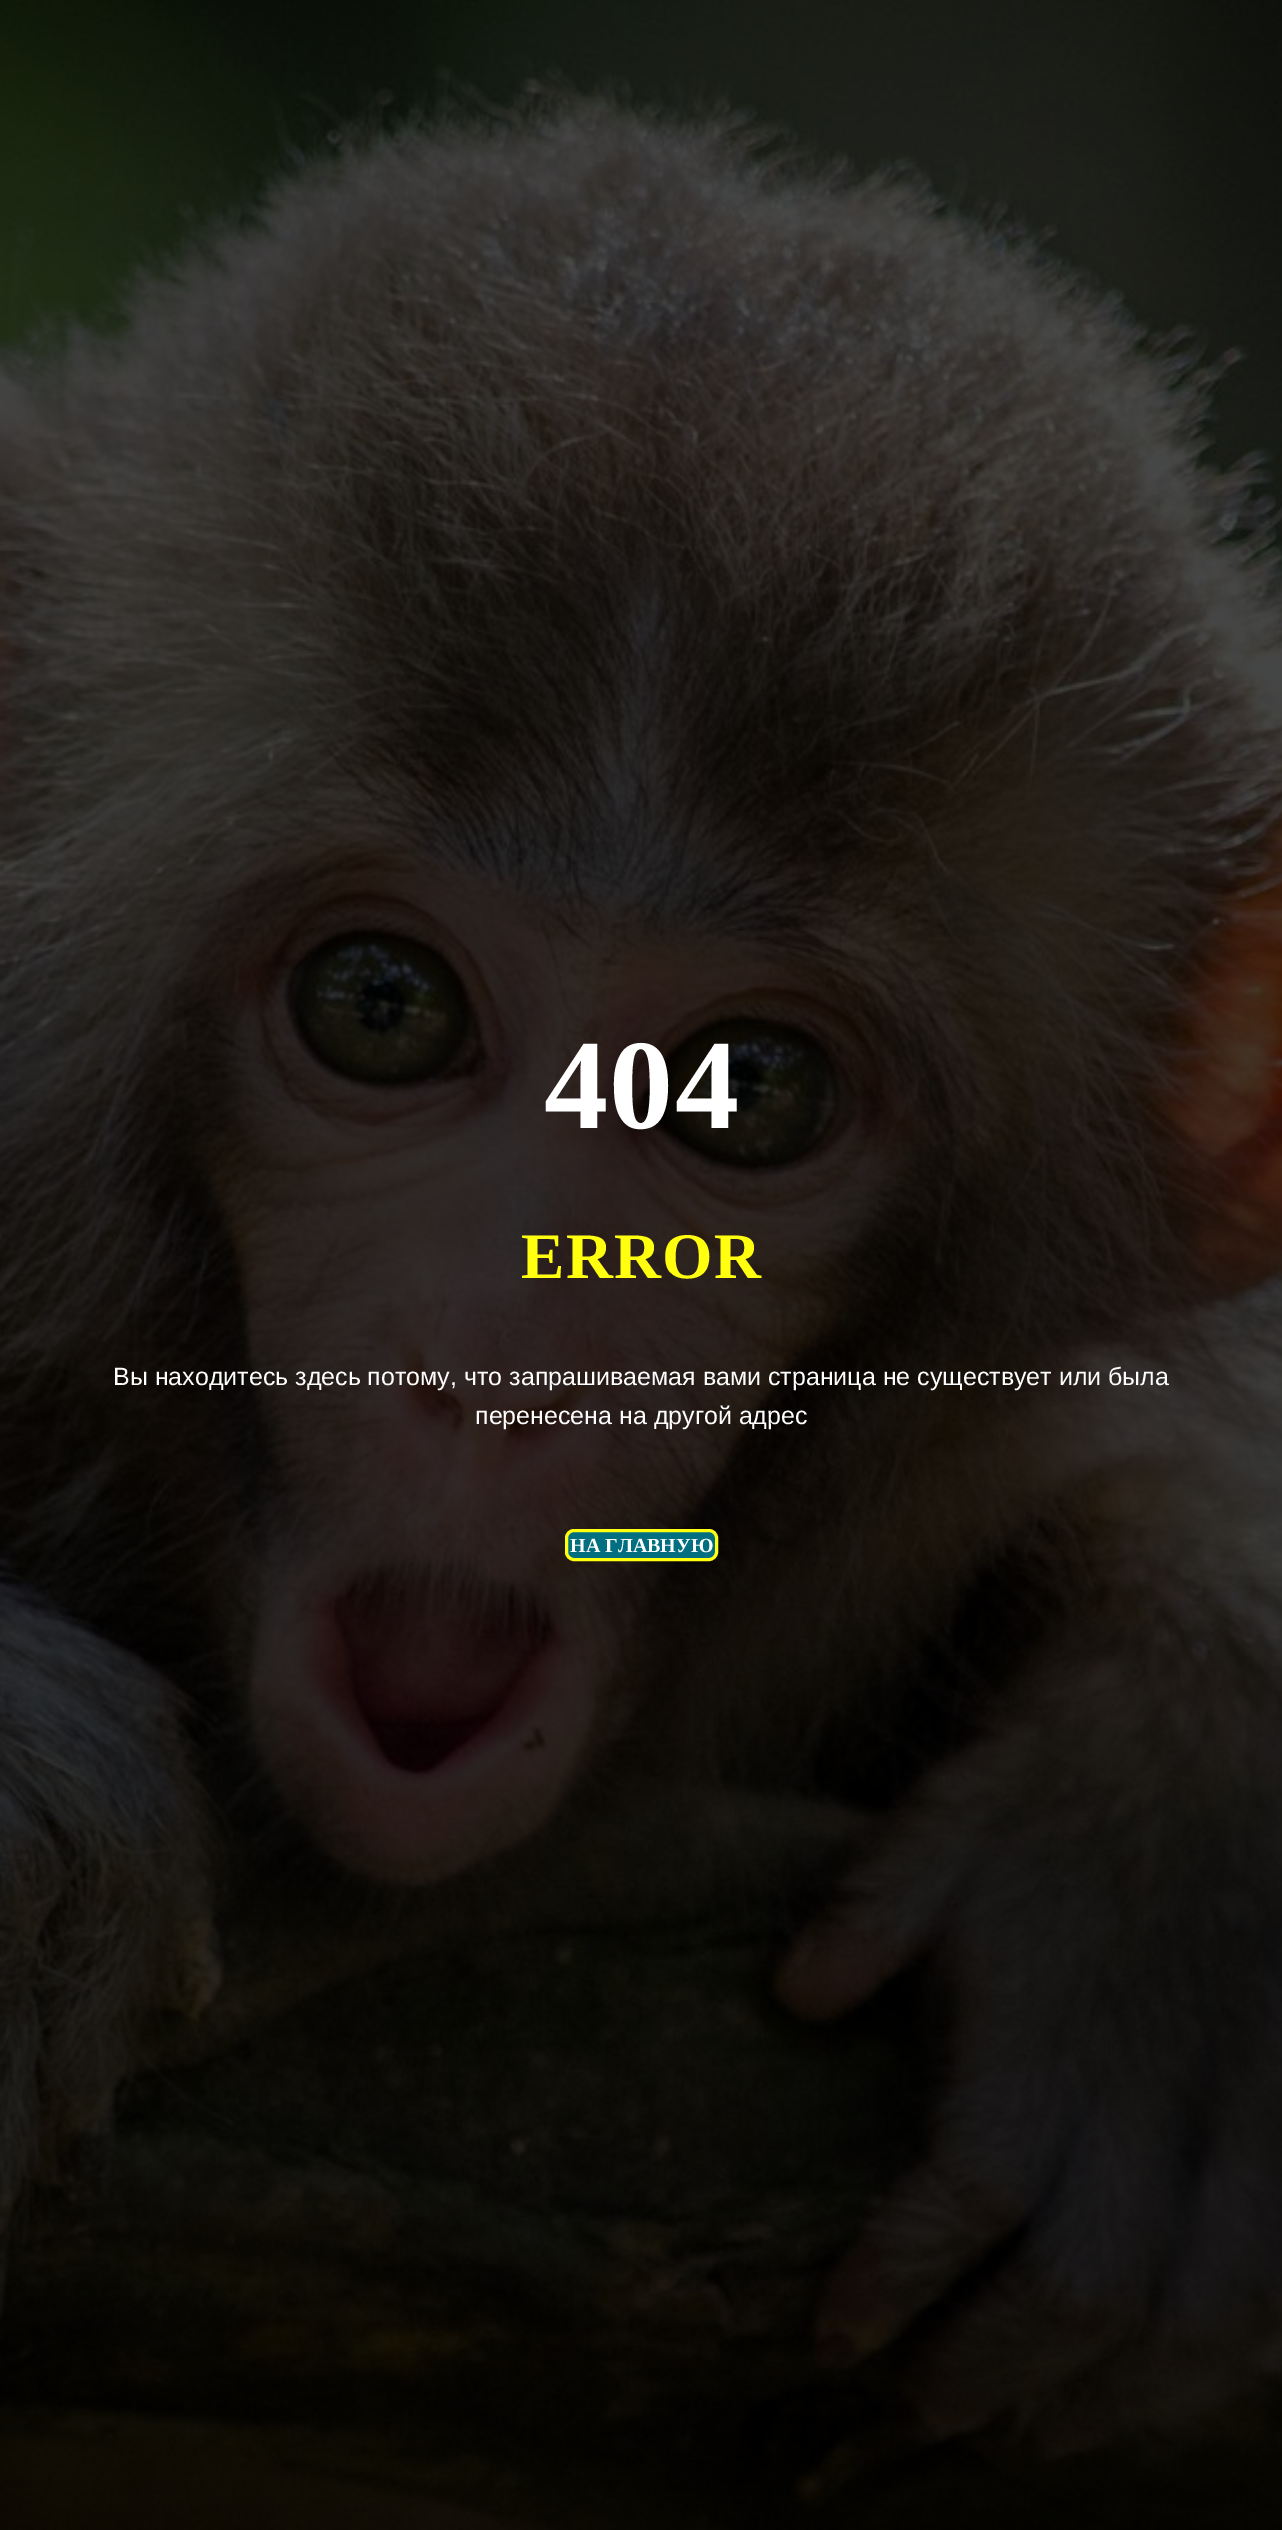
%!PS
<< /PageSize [1282 2530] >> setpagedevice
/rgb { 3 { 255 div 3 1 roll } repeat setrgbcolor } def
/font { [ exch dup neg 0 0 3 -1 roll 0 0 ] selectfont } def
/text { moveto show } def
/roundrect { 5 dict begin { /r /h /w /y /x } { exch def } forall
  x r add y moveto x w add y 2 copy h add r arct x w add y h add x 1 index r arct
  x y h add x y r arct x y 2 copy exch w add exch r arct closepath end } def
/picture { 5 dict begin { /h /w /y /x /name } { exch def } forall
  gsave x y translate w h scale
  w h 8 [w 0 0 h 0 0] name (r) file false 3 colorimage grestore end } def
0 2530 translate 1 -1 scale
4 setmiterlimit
255 255 255 rgb
0 0 1282 2530 rectfill
(img_01.rgb) 0 0 1282 2530 picture
2 111 128 rgb
566.5 1530.5 150 29 7.5 roundrect gsave fill grestore
255 255 15 rgb
3 setlinewidth
stroke
/LiberationSerif-Bold 128 font
255 255 255 rgb
544 1128 moveto 1.25 0 (404) ashow
/LiberationSerif-Bold 65 font
255 255 15 rgb
521 1278 moveto 1.25 0 (ERROR) ashow
/LiberationSans-Regular 25 font
255 255 255 rgb
(Вы находитесь здесь потому, что запрашиваемая вами страница не существует или была) 113 1385 text
(перенесена на другой адрес) 475 1424 text
/LiberationSerif-Bold 20 font
(НА ГЛАВНУЮ) 570 1552 text
showpage
